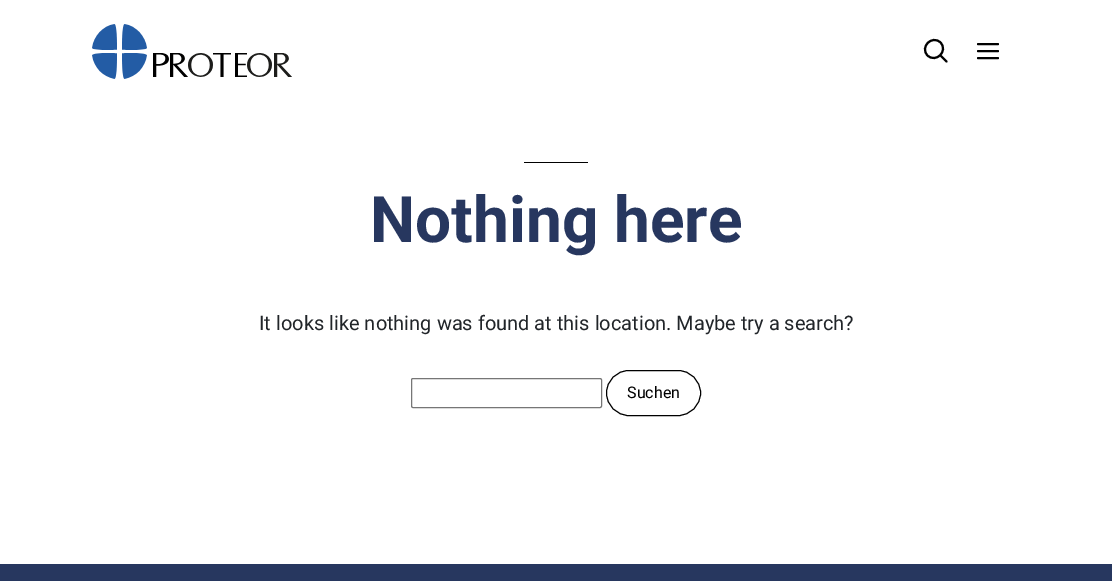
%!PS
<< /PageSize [1112 581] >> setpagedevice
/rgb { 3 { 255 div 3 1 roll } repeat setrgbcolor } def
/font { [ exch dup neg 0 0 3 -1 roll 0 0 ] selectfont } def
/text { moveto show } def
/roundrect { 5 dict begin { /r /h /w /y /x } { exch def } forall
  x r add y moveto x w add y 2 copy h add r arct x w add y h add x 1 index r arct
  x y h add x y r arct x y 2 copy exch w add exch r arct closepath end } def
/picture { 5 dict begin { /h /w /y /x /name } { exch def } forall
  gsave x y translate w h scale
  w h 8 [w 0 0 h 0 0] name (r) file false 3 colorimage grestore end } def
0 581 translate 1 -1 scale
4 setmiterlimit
255 255 255 rgb
0 0 1112 581 rectfill
(img_01.rgb) 92 24 200 55 picture
0 0 0 rgb
2 setlinewidth
1 setlinecap
1 setlinejoin
927.5 55.5 moveto 8.5 8 21 -4.5 13 -13 rcurveto -8.5 -8 -21 4.5 -13 13 rcurveto closepath 940.5 55.5 moveto 6 6 rlineto stroke
978 44 moveto 20 0 rlineto 978 51 moveto 20 0 rlineto 978 58 moveto 20 0 rlineto stroke
524 162 64 1 rectfill
118 118 118 rgb
1 setlinewidth
0 setlinecap
0 setlinejoin
411.5 378.5 190 29 1.5 roundrect stroke
0 0 0 rgb
606.5 370.5 94 45 22.5 roundrect stroke
39 55 95 rgb
0 564 1112 17 rectfill
/Roboto-Bold 64 font
(Nothing here) 370 242 text
/Roboto-Regular 20 font
33 37 41 rgb
(It looks like nothing was found at this location. Maybe try a search?) 259 330 text
/Roboto-Regular 16 font
0 0 0 rgb
(Suchen) 627 398 text
showpage
